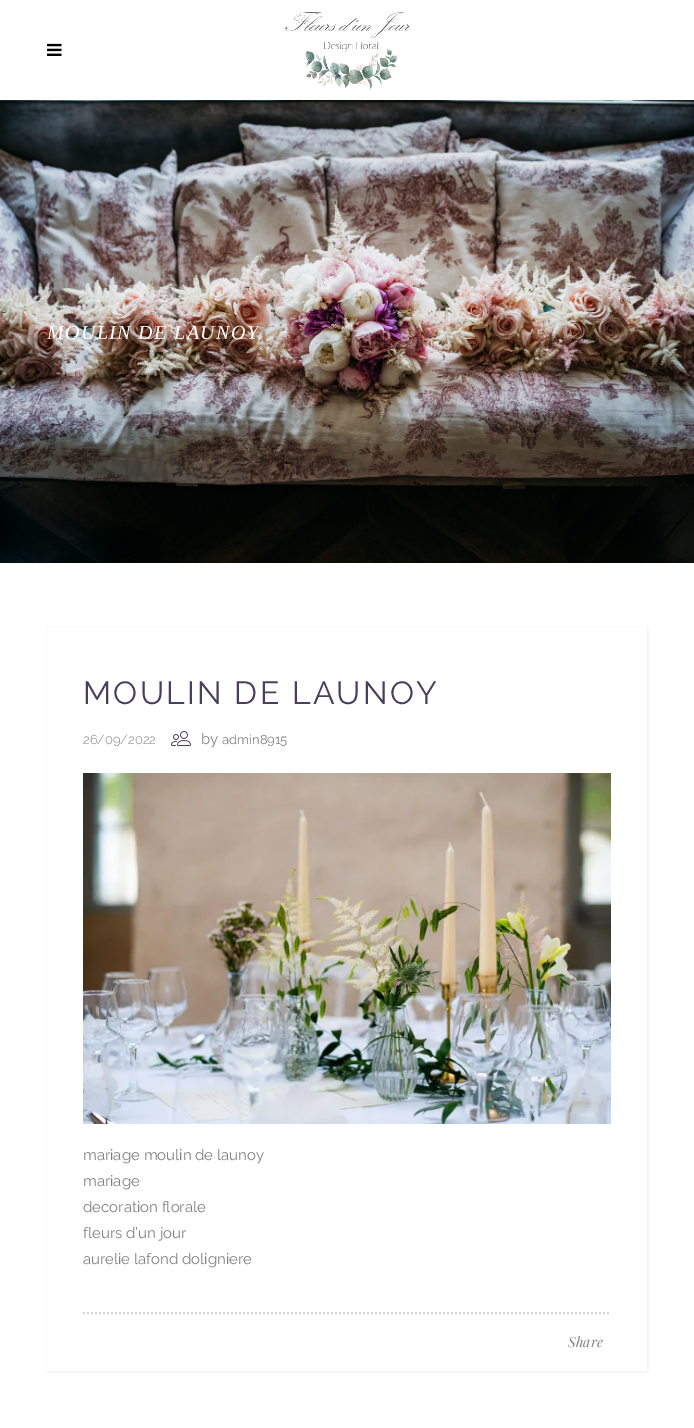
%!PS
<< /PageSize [694 1428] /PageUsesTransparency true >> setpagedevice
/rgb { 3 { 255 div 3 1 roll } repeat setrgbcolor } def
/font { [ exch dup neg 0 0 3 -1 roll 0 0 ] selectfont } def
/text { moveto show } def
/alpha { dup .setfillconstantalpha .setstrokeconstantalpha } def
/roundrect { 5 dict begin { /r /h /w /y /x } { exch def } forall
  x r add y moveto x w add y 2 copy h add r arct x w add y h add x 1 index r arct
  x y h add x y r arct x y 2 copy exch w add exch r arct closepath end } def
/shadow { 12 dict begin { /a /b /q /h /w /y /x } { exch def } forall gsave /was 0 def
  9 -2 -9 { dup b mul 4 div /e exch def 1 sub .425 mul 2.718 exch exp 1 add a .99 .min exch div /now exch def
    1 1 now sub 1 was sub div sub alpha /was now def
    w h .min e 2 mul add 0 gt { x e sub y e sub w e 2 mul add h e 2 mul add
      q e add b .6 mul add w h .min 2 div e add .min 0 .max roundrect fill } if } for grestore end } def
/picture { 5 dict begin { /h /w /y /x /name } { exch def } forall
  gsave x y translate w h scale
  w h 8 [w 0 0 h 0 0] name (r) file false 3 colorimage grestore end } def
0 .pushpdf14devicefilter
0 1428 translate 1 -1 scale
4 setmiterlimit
255 255 255 rgb
0 0 694 1428 rectfill
(img_01.rgb) 47 43 15 13 picture
(img_02.rgb) 285 12 126 78 picture
(img_03.rgb) 0 100 694 463 picture
gsave
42 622 moveto 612 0 rlineto 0 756 rlineto -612 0 rlineto closepath 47 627 moveto 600 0 rlineto 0 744 rlineto -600 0 rlineto closepath eoclip newpath
238 238 238 rgb
48 628 600 744 0 1.5 1 shadow
grestore
(img_04.rgb) 171 731 20 15 picture
(img_05.rgb) 83 773 528 351 picture
215 211 219 rgb
2 setlinewidth
[2 2] 0 setdash
83 1313 moveto 528 0 rlineto stroke
/LiberationSerif-Italic 20 font
255 255 255 rgb
47 339 moveto 1.4 0 (MOULIN DE LAUNOY) ashow
/Raleway-Regular 32 font
74 62 90 rgb
83 704 moveto 2.25 0 (MOULIN DE LAUNOY) ashow
/Raleway-Light 13 font
128 128 128 rgb
(26/09/2022) 83 744 text
/Raleway-Regular 15 font
(by) 201 744 text
/Raleway-Regular 13 font
(admin8915) 222 744 text
/Raleway-Regular 15 font
(mariage moulin de launoy) 83 1160 text
(mariage) 83 1186 text
(decoration florale) 83 1212 text
(fleurs d’un jour) 83 1238 text
(aurelie lafond doligniere) 83 1264 text
/PlayfairDisplay-Italic 14 font
(Share) 568 1347 text
.poppdf14devicefilter showpage
